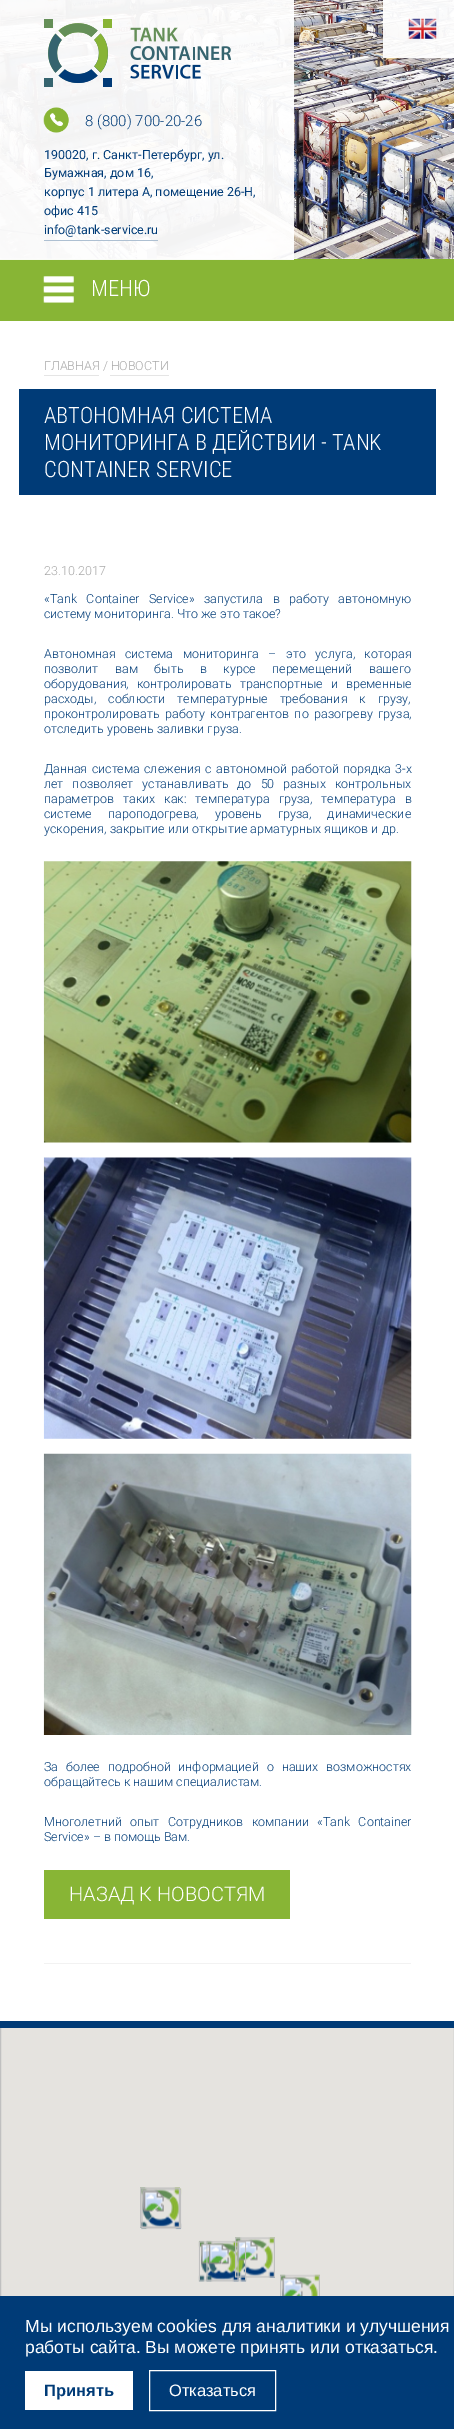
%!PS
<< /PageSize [454 2429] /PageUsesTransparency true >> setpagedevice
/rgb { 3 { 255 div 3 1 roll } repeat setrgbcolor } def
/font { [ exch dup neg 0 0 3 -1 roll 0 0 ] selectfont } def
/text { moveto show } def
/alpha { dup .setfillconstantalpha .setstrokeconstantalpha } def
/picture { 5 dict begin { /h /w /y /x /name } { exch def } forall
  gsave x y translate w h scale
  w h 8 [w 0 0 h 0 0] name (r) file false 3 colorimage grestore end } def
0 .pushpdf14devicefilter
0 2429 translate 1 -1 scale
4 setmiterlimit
255 255 255 rgb
0 0 454 2429 rectfill
(img_01.rgb) 0 0 454 259 picture
0.95 alpha
383 0 71 58 rectfill
1 alpha
(img_02.rgb) 408 18 29 21 picture
136 181 53 rgb
0 259 454 62 rectfill
0.95 alpha
255 255 255 rgb
0 0 294 260 rectfill
1 alpha
(img_03.rgb) 44 19 187 68 picture
(img_04.rgb) 43 107 26 26 picture
174 192 210 rgb
44 240 114 1 rectfill
(img_05.rgb) 43 276 31 27 picture
229 229 229 rgb
44 375 55 1 rectfill
110 375 59 1 rectfill
0 59 119 rgb
19 389 417 106 rectfill
242 242 242 rgb
44 1963 367 1 rectfill
(img_06.rgb) 43 861 369 282 picture
(img_07.rgb) 43 1157 369 282 picture
(img_08.rgb) 43 1453 369 282 picture
136 181 53 rgb
44 1870 246 49 rectfill
0 59 119 rgb
0 2021 454 7 rectfill
(img_09.rgb) 0 2028 454 268 picture
0 2296 454 133 rectfill
255 255 255 rgb
25 2371 108 39 rectfill
149.5 2370.5 126 40 rectstroke
/Roboto-Light 15 font
0 59 119 rgb
(8 \(800\) 700-20-26) 85 126 text
/Roboto-Regular 12.5 font
(190020, г. Санкт-Петербург, ул.) 44 159 text
(Бумажная, дом 16,) 44 177 text
(корпус 1 литера А, помещение 26-Н,) 44 196 text
(офис 415) 44 215 text
(info@tank-service.ru) 44 234 text
/RobotoCondensed-Light 22.5 font
255 255 255 rgb
(МЕНЮ) 91 296 text
/Roboto-Light 12.5 font
168 168 168 rgb
(ГЛАВНАЯ / НОВОСТИ) 44 370 text
/RobotoCondensed-Light 22.5 font
255 255 255 rgb
(АВТОНОМНАЯ СИСТЕМА) 44 423 text
(МОНИТОРИНГА В ДЕЙСТВИИ - TANK) 44 450 text
(CONTAINER SERVICE) 44 477 text
/Roboto-Light 12.5 font
168 168 168 rgb
(23.10.2017) 44 575 text
0 59 119 rgb
44 603 moveto 6.5 0 32 («Tank Container Service» запустила в работу автономную) widthshow
(систему мониторинга. Что же это такое?) 44 618 text
44 658 moveto 6.5 0 32 (Автономная система мониторинга – это услуга, которая) widthshow
44 673 moveto 13.5 0 32 (позволит вам быть в курсе перемещений вашего) widthshow
44 688 moveto 5 0 32 (оборудования, контролировать транспортные и временные) widthshow
44 703 moveto 9 0 32 (расходы, соблюсти температурные требования к грузу,) widthshow
44 718 moveto 2.5 0 32 (проконтролировать работу контрагентов по разогреву груза,) widthshow
(отследить уровень заливки груза.) 44 733 text
44 773 moveto 1.25 0 32 (Данная система слежения с автономной работой порядка 3-х) widthshow
44 788 moveto 6 0 32 (лет позволяет устанавливать до 50 разных контрольных) widthshow
44 803 moveto 6 0 32 (параметров таких как: температура груза, температура в) widthshow
44 818 moveto 13 0 32 (системе пароподогрева, уровень груза, динамические) widthshow
(ускорения, закрытие или открытие арматурных ящиков и др.) 44 833 text
44 1771 moveto 4.75 0 32 (За более подробной информацией о наших возможностях) widthshow
(обращайтесь к нашим специалистам.) 44 1786 text
44 1826 moveto 5.25 0 32 (Многолетний опыт Сотрудников компании «Tank Container) widthshow
(Service» – в помощь Вам.) 44 1841 text
/Roboto-Light 20 font
255 255 255 rgb
(НАЗАД К НОВОСТЯМ) 69 1901 text
/LiberationSans-Regular 17.5 font
(Мы используем cookies для аналитики и улучшения) 25 2332 text
(работы сайта. Вы можете принять или отказаться.) 25 2353 text
/LiberationSans-Bold 16.5 font
0 59 119 rgb
(Принять) 44 2396 text
/LiberationSans-Regular 16.5 font
255 255 255 rgb
(Отказаться) 169 2396 text
.poppdf14devicefilter showpage
